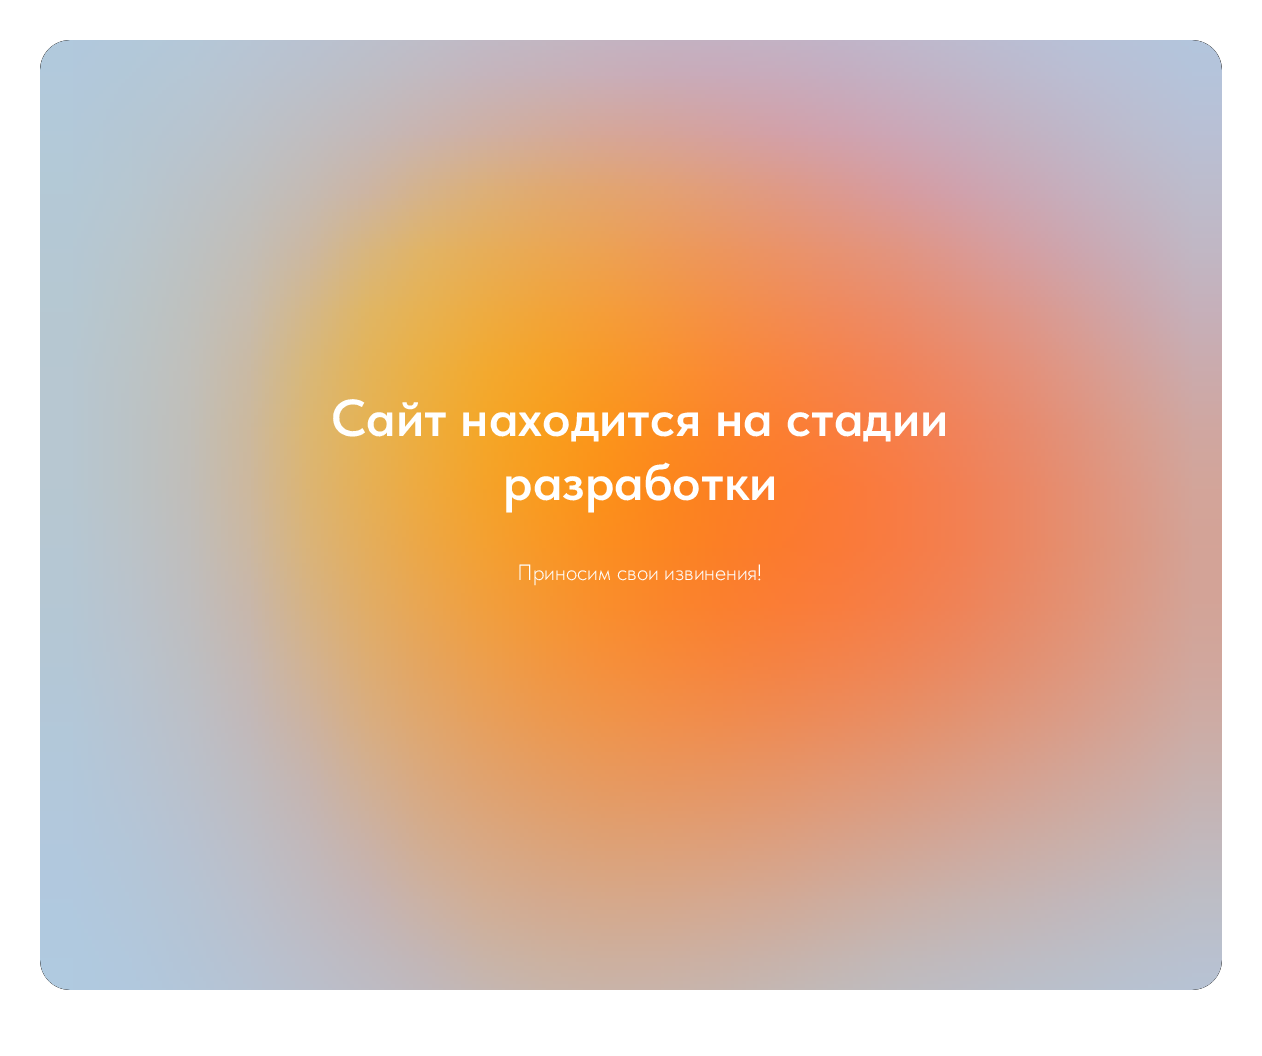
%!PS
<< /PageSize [1262 1056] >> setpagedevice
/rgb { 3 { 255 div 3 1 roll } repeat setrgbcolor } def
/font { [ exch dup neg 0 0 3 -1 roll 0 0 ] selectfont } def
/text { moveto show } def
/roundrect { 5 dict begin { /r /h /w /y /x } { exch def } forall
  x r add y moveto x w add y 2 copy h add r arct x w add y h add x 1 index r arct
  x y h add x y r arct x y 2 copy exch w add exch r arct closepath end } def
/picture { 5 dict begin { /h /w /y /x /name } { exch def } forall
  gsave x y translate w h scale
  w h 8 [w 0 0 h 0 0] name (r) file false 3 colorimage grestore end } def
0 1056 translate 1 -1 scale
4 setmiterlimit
255 255 255 rgb
0 0 1262 1056 rectfill
0 0 0 rgb
40 40 1182 950 30 roundrect fill
(img_01.rgb) 40 40 1182 950 picture
/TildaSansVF-SemiBold 52 font
255 255 255 rgb
(Сайт находится на стадии) 331 436 text
(разработки) 503 500 text
/TildaSansVF-Light 22 font
(Приносим свои извинения!) 517 580 text
showpage
